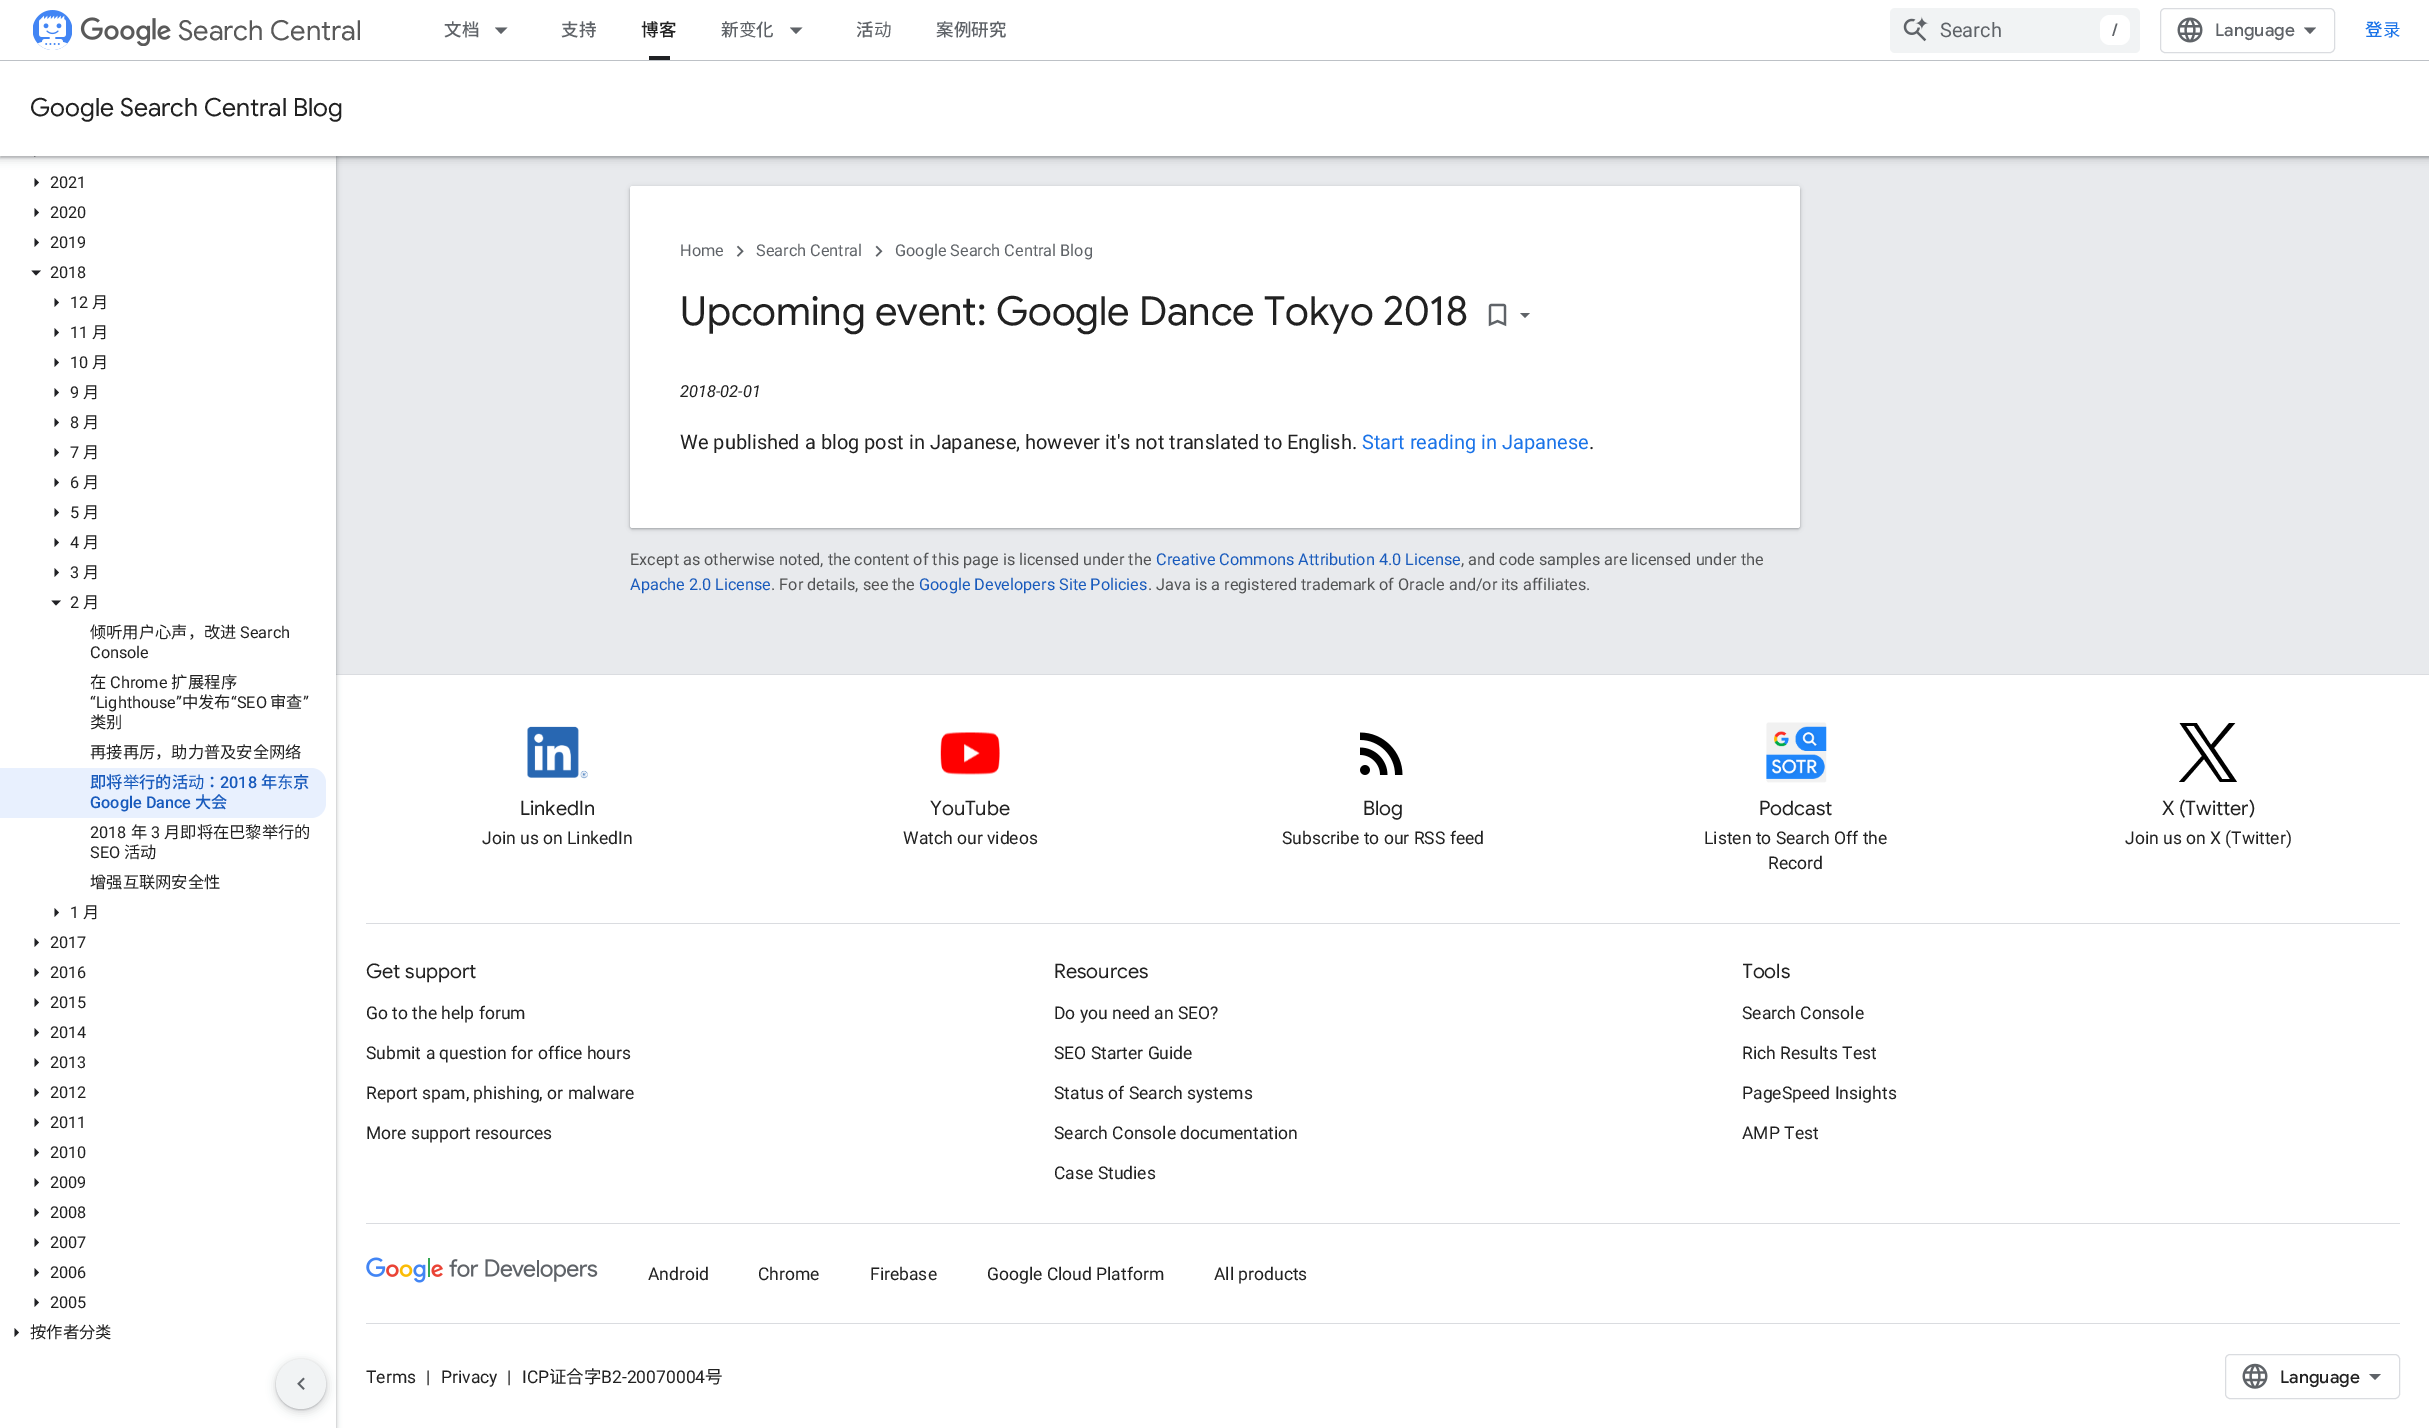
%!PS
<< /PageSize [2429 1428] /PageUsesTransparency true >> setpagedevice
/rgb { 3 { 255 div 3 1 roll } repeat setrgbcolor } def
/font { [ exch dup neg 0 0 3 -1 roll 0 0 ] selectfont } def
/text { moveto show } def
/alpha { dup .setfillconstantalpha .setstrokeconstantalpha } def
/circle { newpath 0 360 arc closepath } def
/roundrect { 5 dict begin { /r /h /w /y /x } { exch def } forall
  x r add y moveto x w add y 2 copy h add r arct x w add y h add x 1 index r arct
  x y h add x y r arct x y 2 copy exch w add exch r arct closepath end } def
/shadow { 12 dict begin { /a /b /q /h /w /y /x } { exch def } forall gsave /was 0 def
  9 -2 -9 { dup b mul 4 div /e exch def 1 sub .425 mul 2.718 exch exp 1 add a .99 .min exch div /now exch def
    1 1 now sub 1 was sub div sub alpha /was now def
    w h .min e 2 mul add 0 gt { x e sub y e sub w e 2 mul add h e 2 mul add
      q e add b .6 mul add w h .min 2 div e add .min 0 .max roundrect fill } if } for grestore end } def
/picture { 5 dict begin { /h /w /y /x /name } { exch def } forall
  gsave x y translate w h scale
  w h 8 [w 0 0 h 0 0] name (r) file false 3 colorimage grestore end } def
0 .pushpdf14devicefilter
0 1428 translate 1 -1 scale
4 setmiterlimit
232 234 237 rgb
0 0 2429 1428 rectfill
255 255 255 rgb
336 675 2093 753 rectfill
218 220 224 rgb
336 674 2093 1 rectfill
60 64 67 rgb
-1 0 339 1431 0 2 0.15 shadow
0 1 336 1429 0 1 0.3 shadow
255 255 255 rgb
0 156 336 1272 rectfill
32 33 36 rgb
34.5 157 moveto 0 -9 rlineto 4.5 4.5 rlineto closepath fill
60 64 67 rgb
-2 61 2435 100 0 4 0.15 shadow
0 63 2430 95 0 1 0.3 shadow
255 255 255 rgb
0 0 2429 60 rectfill
189 193 198 rgb
0 60 2429 1 rectfill
(img_01.rgb) 33 10 39 40 picture
(img_02.rgb) 80 17 91 29 picture
95 99 104 rgb
495 27.5 moveto 12.5 0 rlineto -6.5 6.5 rlineto closepath fill
32 33 36 rgb
649 56 21 4 rectfill
95 99 104 rgb
790 27.5 moveto 12.5 0 rlineto -6.5 6.5 rlineto closepath fill
241 243 244 rgb
1890 8 250 45 5 roundrect fill
(img_03.rgb) 1903 16 26 26 picture
255 255 255 rgb
2100 15 30 30 10 roundrect fill
218 220 224 rgb
2160.5 8.5 174 44 4.5 roundrect stroke
(img_04.rgb) 2177 17 26 26 picture
95 99 104 rgb
2310 34 moveto -6 -6.5 rlineto 12 0 rlineto closepath fill
255 255 255 rgb
0 61 2429 95 rectfill
32 33 36 rgb
34.5 187 moveto 0 -9 rlineto 4.5 4.5 rlineto closepath fill
34.5 217 moveto 0 -9 rlineto 4.5 4.5 rlineto closepath fill
34.5 247 moveto 0 -9 rlineto 4.5 4.5 rlineto closepath fill
31.5 270.5 moveto 9.5 0 rlineto -5 5 rlineto closepath fill
54.5 307 moveto 0 -9 rlineto 4.5 4.5 rlineto closepath fill
54.5 337 moveto 0 -9 rlineto 4.5 4.5 rlineto closepath fill
54.5 367 moveto 0 -9 rlineto 4.5 4.5 rlineto closepath fill
54.5 397 moveto 0 -9 rlineto 4.5 4.5 rlineto closepath fill
54.5 427 moveto 0 -9 rlineto 4.5 4.5 rlineto closepath fill
54.5 457 moveto 0 -9 rlineto 4.5 4.5 rlineto closepath fill
54.5 487 moveto 0 -9 rlineto 4.5 4.5 rlineto closepath fill
54.5 517 moveto 0 -9 rlineto 4.5 4.5 rlineto closepath fill
54.5 547 moveto 0 -9 rlineto 4.5 4.5 rlineto closepath fill
54.5 577 moveto 0 -9 rlineto 4.5 4.5 rlineto closepath fill
51.5 600.5 moveto 9.5 0 rlineto -5 5 rlineto closepath fill
232 240 254 rgb
0 768 moveto 311 0 rlineto 8.5 0 15 6.5 15 15 rcurveto 0 20 rlineto 0 8.5 -6.5 15 -15 15 rcurveto -311 0 rlineto closepath fill
32 33 36 rgb
54.5 917 moveto 0 -9 rlineto 4.5 4.5 rlineto closepath fill
34.5 947 moveto 0 -9 rlineto 4.5 4.5 rlineto closepath fill
34.5 977 moveto 0 -9 rlineto 4.5 4.5 rlineto closepath fill
34.5 1007 moveto 0 -9 rlineto 4.5 4.5 rlineto closepath fill
34.5 1037 moveto 0 -9 rlineto 4.5 4.5 rlineto closepath fill
34.5 1067 moveto 0 -9 rlineto 4.5 4.5 rlineto closepath fill
34.5 1097 moveto 0 -9 rlineto 4.5 4.5 rlineto closepath fill
34.5 1127 moveto 0 -9 rlineto 4.5 4.5 rlineto closepath fill
34.5 1157 moveto 0 -9 rlineto 4.5 4.5 rlineto closepath fill
34.5 1187 moveto 0 -9 rlineto 4.5 4.5 rlineto closepath fill
34.5 1217 moveto 0 -9 rlineto 4.5 4.5 rlineto closepath fill
34.5 1247 moveto 0 -9 rlineto 4.5 4.5 rlineto closepath fill
34.5 1277 moveto 0 -9 rlineto 4.5 4.5 rlineto closepath fill
34.5 1307 moveto 0 -9 rlineto 4.5 4.5 rlineto closepath fill
14.5 1337 moveto 0 -9 rlineto 4.5 4.5 rlineto closepath fill
60 64 67 rgb
629 186 1172 344 4 2 0.15 shadow
630 188 1170 341 2.5 1 0.3 shadow
255 255 255 rgb
630 186 1170 342 2.5 roundrect fill
(img_05.rgb) 736 245 8 12 picture
(img_06.rgb) 875 245 8 12 picture
(img_07.rgb) 1488 303 19 24 picture
95 99 104 rgb
1520 313 moveto 10 0 rlineto -5 5 rlineto closepath fill
218 220 224 rgb
366 923 2034 1 rectfill
(img_08.rgb) 527 726 61 53 picture
(img_09.rgb) 940 732 60 43 picture
(img_10.rgb) 1360 732 43 43 picture
(img_11.rgb) 1766 722 61 61 picture
gsave
2179 723 58 60 rectclip
0 0 0 rgb
2214 748 moveto 22 -26 rlineto -6 0 rlineto -19 23 rlineto -15 -23 rlineto -17 0 rlineto 23 34 rlineto -23 26 rlineto 5 0 rlineto 20 -23 rlineto 16 23 rlineto 17 0 rlineto closepath 2207 756 moveto -21 -30 rlineto 8 0 rlineto 36 53 rlineto -8 0 rlineto closepath fill
grestore
366 1223 2034 1 rectfill
366 1323 2034 1 rectfill
(img_12.rgb) 366 1257 232 26 picture
2225.5 1354.5 174 44 4.5 roundrect stroke
(img_13.rgb) 2242 1363 26 26 picture
95 99 104 rgb
2375 1380 moveto -6 -6 rlineto 12 0 rlineto closepath fill
60 64 67 rgb
274 1359 55 55 27.5 4 0.15 shadow
276 1360 50 50 25 1 0.3 shadow
241 243 244 rgb
301 1384 25 circle fill
(img_14.rgb) 297 1377 8 13 picture
/GoogleSans-Regular 27.5 font
89 89 89 rgb
(Search Central) 178 40 text
/NotoSansJP-Medium 17.5 font
95 99 104 rgb
(文档) 444 36 text
(支持) 561 36 text
33 33 33 rgb
(博客) 641 36 text
95 99 104 rgb
(新) 721 36 text
/NotoSansCJKSC-Regular 17.5 font
(变) 739 36 text
/NotoSansJP-Medium 17.5 font
(化) 756 36 text
(活) 856 36 text
/NotoSansCJKSC-Regular 17.5 font
(动) 874 36 text
/NotoSansJP-Medium 17.5 font
(案例研究) 936 36 text
/Roboto-Regular 20 font
(Search) 1940 37 text
/GoogleSans-Medium 17.5 font
(/) 2112 36 text
(Language) 2215 36 text
/NotoSansJP-Medium 17.5 font
26 115 232 rgb
(登) 2365 36 text
/NotoSansCJKSC-Regular 17.5 font
(录) 2383 36 text
/GoogleSans-Regular 25 font
33 33 33 rgb
(Google Search Central Blog) 30 116 text
/Roboto-Regular 16.25 font
(2021) 50 188 text
(2020) 50 218 text
(2019) 50 248 text
(2018) 50 278 text
(12) 70 308 text
/NotoSansJP-Regular 16.25 font
(月) 92 308 text
/Roboto-Regular 16.25 font
(11) 70 338 text
/NotoSansJP-Regular 16.25 font
(月) 92 338 text
/Roboto-Regular 16.25 font
(10) 70 368 text
/NotoSansJP-Regular 16.25 font
(月) 92 368 text
/Roboto-Regular 16.25 font
(9) 70 398 text
/NotoSansJP-Regular 16.25 font
(月) 83 398 text
/Roboto-Regular 16.25 font
(8) 70 428 text
/NotoSansJP-Regular 16.25 font
(月) 83 428 text
/Roboto-Regular 16.25 font
(7) 70 458 text
/NotoSansJP-Regular 16.25 font
(月) 83 458 text
/Roboto-Regular 16.25 font
(6) 70 488 text
/NotoSansJP-Regular 16.25 font
(月) 83 488 text
/Roboto-Regular 16.25 font
(5) 70 518 text
/NotoSansJP-Regular 16.25 font
(月) 83 518 text
/Roboto-Regular 16.25 font
(4) 70 548 text
/NotoSansJP-Regular 16.25 font
(月) 83 548 text
/Roboto-Regular 16.25 font
(3) 70 578 text
/NotoSansJP-Regular 16.25 font
(月) 83 578 text
/Roboto-Regular 16.25 font
(2) 70 608 text
/NotoSansJP-Regular 16.25 font
(月) 83 608 text
/NotoSansCJKSC-Regular 16.25 font
(倾) 90 638 text
/NotoSansJP-Regular 16.25 font
(听用) 106 638 text
/NotoSansCJKSC-Regular 16.25 font
(户) 139 638 text
/NotoSansJP-Regular 16.25 font
(心声，改) 155 638 text
/NotoSansCJKSC-Regular 16.25 font
(进) 220 638 text
/Roboto-Regular 16.25 font
(Search) 240 638 text
(Console) 90 658 text
/NotoSansJP-Regular 16.25 font
(在) 90 688 text
/Roboto-Regular 16.25 font
(Chrome) 110 688 text
/NotoSansCJKSC-Regular 16.25 font
(扩) 171 688 text
/NotoSansJP-Regular 16.25 font
(展程序) 188 688 text
/Roboto-Regular 16.25 font
(“Lighthouse”) 90 708 text
/NotoSansJP-Regular 16.25 font
(中) 182 708 text
/NotoSansCJKSC-Regular 16.25 font
(发) 198 708 text
/NotoSansJP-Regular 16.25 font
(布) 214 708 text
/Roboto-Regular 16.25 font
(“SEO) 231 708 text
/NotoSansCJKSC-Regular 16.25 font
(审查) 270 708 text
/Roboto-Regular 16.25 font
(”) 303 708 text
/NotoSansJP-Regular 16.25 font
(类别) 90 728 text
(再接再厉，助力普及安全网) 90 758 text
/NotoSansCJKSC-Regular 16.25 font
(络) 285 758 text
/NotoSansJP-Medium 16.25 font
24 90 188 rgb
(即将) 90 788 text
/NotoSansCJKSC-Regular 16.25 font
(举) 123 788 text
/NotoSansJP-Medium 16.25 font
(行的活) 139 788 text
/NotoSansCJKSC-Regular 16.25 font
(动) 188 788 text
/NotoSansJP-Medium 16.25 font
(：) 204 788 text
/Roboto-Medium 16.25 font
(2018) 220 788 text
/NotoSansJP-Medium 16.25 font
(年) 261 788 text
/NotoSansCJKSC-Regular 16.25 font
(东) 277 788 text
/NotoSansJP-Medium 16.25 font
(京) 293 788 text
/Roboto-Medium 16.25 font
(Google Dance) 90 808 text
/NotoSansJP-Medium 16.25 font
(大会) 195 808 text
/Roboto-Regular 16.25 font
33 33 33 rgb
(2018) 90 838 text
/NotoSansJP-Regular 16.25 font
(年) 131 838 text
/Roboto-Regular 16.25 font
(3) 151 838 text
/NotoSansJP-Regular 16.25 font
(月即将在巴黎) 164 838 text
/NotoSansCJKSC-Regular 16.25 font
(举) 262 838 text
/NotoSansJP-Regular 16.25 font
(行的) 278 838 text
/Roboto-Regular 16.25 font
(SEO) 90 858 text
/NotoSansJP-Regular 16.25 font
(活) 124 858 text
/NotoSansCJKSC-Regular 16.25 font
(动) 140 858 text
/NotoSansJP-Regular 16.25 font
(增强互) 90 888 text
/NotoSansCJKSC-Regular 16.25 font
(联) 139 888 text
/NotoSansJP-Regular 16.25 font
(网安全性) 155 888 text
/Roboto-Regular 16.25 font
(1) 70 918 text
/NotoSansJP-Regular 16.25 font
(月) 83 918 text
/Roboto-Regular 16.25 font
(2017) 50 948 text
(2016) 50 978 text
(2015) 50 1008 text
(2014) 50 1038 text
(2013) 50 1068 text
(2012) 50 1098 text
(2011) 50 1128 text
(2010) 50 1158 text
(2009) 50 1188 text
(2008) 50 1218 text
(2007) 50 1248 text
(2006) 50 1278 text
(2005) 50 1308 text
/NotoSansJP-Regular 16.25 font
(按作者分类) 30 1338 text
/Roboto-Regular 16.25 font
95 99 104 rgb
(Home) 680 256 text
(Search Central) 756 256 text
(Google Search Central Blog) 895 256 text
/GoogleSans-Regular 40 font
33 33 33 rgb
(Upcoming event: Google Dance Tokyo 2018) 680 325 text
/Roboto-Italic 16.5 font
(2018-02-01) 680 397 text
/Roboto-Regular 20 font
(We published a blog post in Japanese, however it's not translated to English.) 680 449 text
26 115 232 rgb
(Start reading in Japanese) 1362 449 text
33 33 33 rgb
(.) 1589 449 text
/Roboto-Regular 16.25 font
81 82 83 rgb
(Except as otherwise noted, the content of this page is licensed under the) 630 565 text
24 90 188 rgb
(Creative Commons Attribution 4.0 License) 1156 565 text
81 82 83 rgb
(, and code samples are licensed under the) 1461 565 text
24 90 188 rgb
(Apache 2.0 License) 630 590 text
81 82 83 rgb
(. For details, see the) 771 590 text
24 90 188 rgb
(Google Developers Site Policies) 919 590 text
81 82 83 rgb
(. Java is a registered trademark of Oracle and/or its affiliates.) 1148 590 text
/GoogleSans-Regular 20 font
33 33 33 rgb
(LinkedIn) 520 815 text
/Roboto-Regular 17.5 font
(Join us on LinkedIn) 482 844 text
/GoogleSans-Regular 20 font
(YouTube) 930 815 text
/Roboto-Regular 17.5 font
(Watch our videos) 903 844 text
/GoogleSans-Regular 20 font
(Blog) 1363 815 text
/Roboto-Regular 17.5 font
(Subscribe to our RSS feed) 1282 844 text
/GoogleSans-Regular 20 font
(Podcast) 1759 815 text
/Roboto-Regular 17.5 font
(Listen to Search Off the) 1704 844 text
(Record) 1768 869 text
/GoogleSans-Regular 20 font
(X \(Twitter\)) 2162 815 text
/Roboto-Regular 17.5 font
(Join us on X \(Twitter\)) 2125 844 text
/GoogleSans-Regular 20 font
(Get support) 366 978 text
/Roboto-Regular 17.5 font
(Go to the help forum) 366 1019 text
(Submit a question for office hours) 366 1059 text
(Report spam, phishing, or malware) 366 1099 text
(More support resources) 366 1139 text
/GoogleSans-Regular 20 font
(Resources) 1054 978 text
/Roboto-Regular 17.5 font
(Do you need an SEO?) 1054 1019 text
(SEO Starter Guide) 1054 1059 text
(Status of Search systems) 1054 1099 text
(Search Console documentation) 1054 1139 text
(Case Studies) 1054 1179 text
gsave
1743 0 657 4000 rectclip
/GoogleSans-Regular 20 font
(Tools) 1742 978 text
grestore
(Search Console) 1742 1019 text
(Rich Results Test) 1742 1059 text
(PageSpeed Insights) 1742 1099 text
(AMP Test) 1742 1139 text
(Android) 648 1280 text
(Chrome) 758 1280 text
(Firebase) 870 1280 text
(Google Cloud Platform) 987 1280 text
(All products) 1214 1280 text
(Terms) 366 1383 text
(|) 426 1383 text
(Privacy) 441 1383 text
(|) 507 1383 text
(ICP) 522 1383 text
/NotoSansCJKSC-Regular 17.5 font
(证) 549 1383 text
/NotoSansJP-Regular 17.5 font
(合字) 566 1383 text
/Roboto-Regular 17.5 font
(B2-20070004) 601 1383 text
/NotoSansJP-Regular 17.5 font
(号) 705 1383 text
/GoogleSans-Medium 17.5 font
(Language) 2280 1383 text
.poppdf14devicefilter showpage
